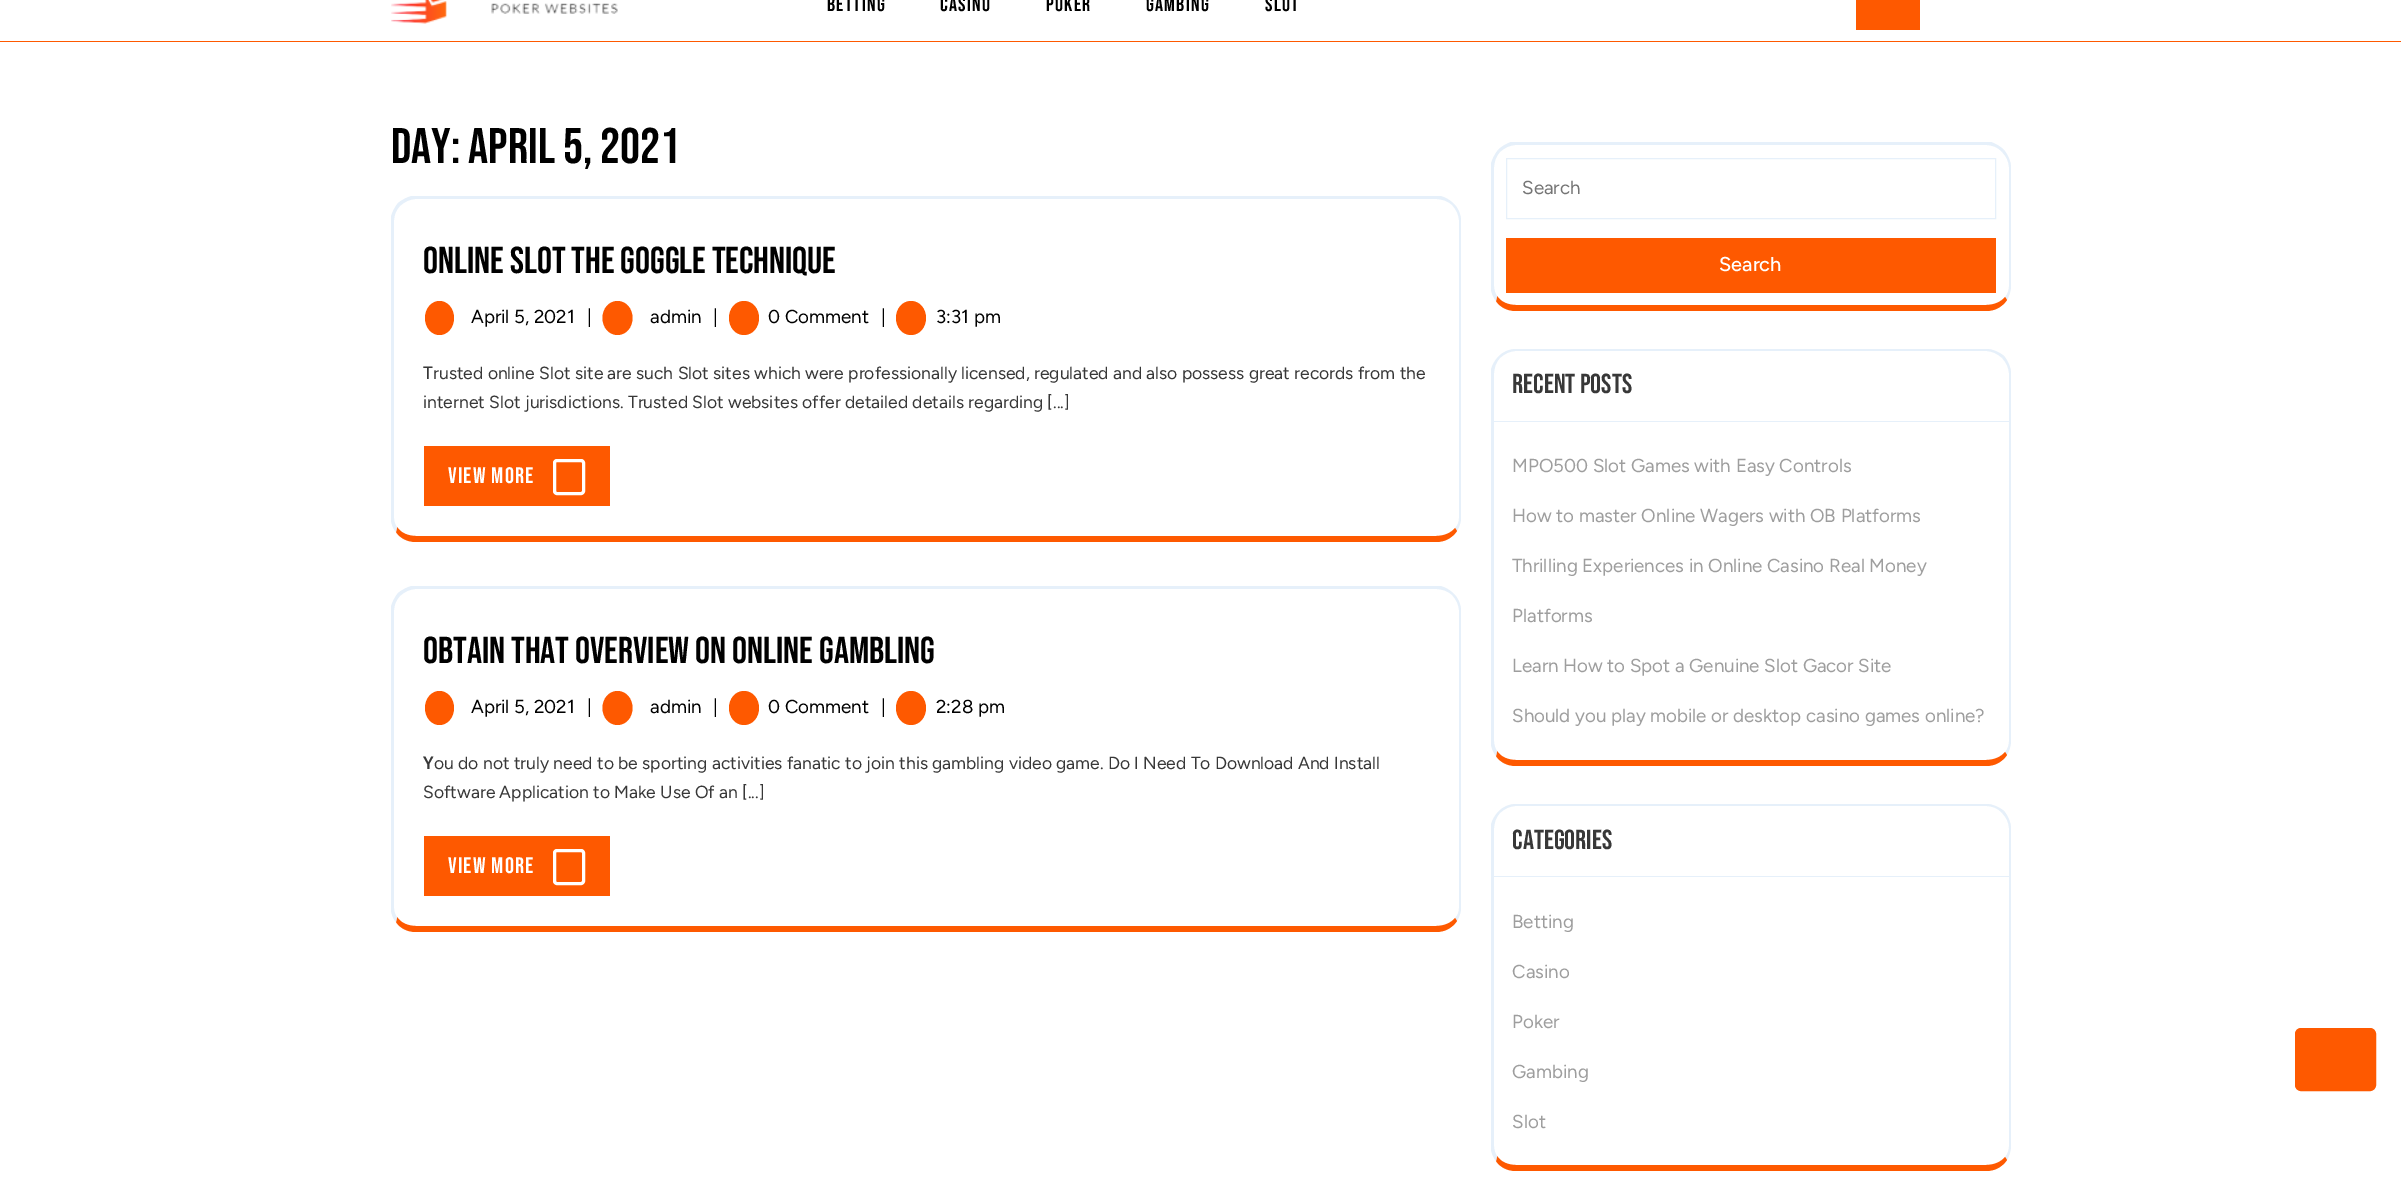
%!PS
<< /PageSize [2401 1178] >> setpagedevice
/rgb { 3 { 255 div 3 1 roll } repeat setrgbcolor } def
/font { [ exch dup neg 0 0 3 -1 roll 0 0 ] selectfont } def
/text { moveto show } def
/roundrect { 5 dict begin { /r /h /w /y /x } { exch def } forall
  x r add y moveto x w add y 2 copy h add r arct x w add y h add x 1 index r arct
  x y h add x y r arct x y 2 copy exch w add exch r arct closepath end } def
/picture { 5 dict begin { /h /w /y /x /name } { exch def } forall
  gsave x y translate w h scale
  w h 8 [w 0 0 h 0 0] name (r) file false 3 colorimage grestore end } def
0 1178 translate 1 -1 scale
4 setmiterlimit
255 255 255 rgb
0 0 2401 1178 rectfill
254 89 0 rgb
0 41 2401 1 rectfill
(img_01.rgb) 391 0 227 24 picture
1856 0 64 30 rectfill
230 240 250 rgb
416 199 moveto -6 0 -12 3 -16 7 rcurveto -2 -3 rlineto 4 -3 9 -6 14 -7 rcurveto 1028 0 rlineto 5 1 10 4 14 8 rcurveto -2 1 rlineto -4 -4 -10 -6 -16 -6 rcurveto closepath fill
1454 204 moveto 4 4 7 10 7 17 rcurveto 0 297 rlineto 0 5 -2 9 -4 13 rcurveto -2 -3 rlineto 3 -3 4 -6 4 -10 rcurveto 0 -297 rlineto 0 -6 -3 -12 -7 -16 rcurveto closepath fill
254 89 0 rgb
1457 531 moveto -5 7 -12 11 -21 11 rcurveto -1020 0 rlineto -9 0 -16 -4 -20 -10 rcurveto 1 -5 rlineto 4 6 11 9 19 9 rcurveto 1020 0 rlineto 8 0 15 -3 19 -8 rcurveto closepath fill
230 240 250 rgb
391 217 moveto 1 -5 4 -10 7 -14 rcurveto 2 3 rlineto -4 4 -6 9 -6 15 rcurveto 0 297 rlineto 0 3 1 7 3 9 rcurveto -1 5 rlineto -3 -3 -4 -7 -5 -11 rcurveto closepath fill
254 89 0 rgb
439.5 301 moveto 8 0 14.5 7.5 14.5 17 rcurveto 0 9.5 -6.5 17 -14.5 17 rcurveto -8 0 -14.5 -7.5 -14.5 -17 rcurveto 0 -9.5 6.5 -17 14.5 -17 rcurveto closepath fill
617.5 301 moveto 8.5 0 15 7.5 15 17 rcurveto 0 9.5 -6.5 17 -15 17 rcurveto -8.5 0 -15 -7.5 -15 -17 rcurveto 0 -9.5 6.5 -17 15 -17 rcurveto closepath fill
744 301 moveto 8.5 0 15 7.5 15 17 rcurveto 0 9.5 -6.5 17 -15 17 rcurveto -8.5 0 -15 -7.5 -15 -17 rcurveto 0 -9.5 6.5 -17 15 -17 rcurveto closepath fill
911 301 moveto 8.5 0 15 7.5 15 17 rcurveto 0 9.5 -6.5 17 -15 17 rcurveto -8.5 0 -15 -7.5 -15 -17 rcurveto 0 -9.5 6.5 -17 15 -17 rcurveto closepath fill
424 446 186 60 rectfill
255 255 255 rgb
3 setlinewidth
554.5 460.5 29 33 2.5 roundrect stroke
230 240 250 rgb
416 589 moveto -6 0 -12 3 -16 7 rcurveto -2 -3 rlineto 4 -3 9 -6 14 -7 rcurveto 1028 0 rlineto 5 1 10 4 14 8 rcurveto -2 1 rlineto -4 -4 -10 -6 -16 -6 rcurveto closepath fill
1454 594 moveto 4 4 7 10 7 17 rcurveto 0 297 rlineto 0 5 -2 9 -4 13 rcurveto -2 -3 rlineto 3 -3 4 -6 4 -10 rcurveto 0 -297 rlineto 0 -6 -3 -12 -7 -16 rcurveto closepath fill
254 89 0 rgb
1457 921 moveto -5 7 -12 11 -21 11 rcurveto -1020 0 rlineto -9 0 -16 -4 -20 -10 rcurveto 1 -5 rlineto 4 6 11 9 19 9 rcurveto 1020 0 rlineto 8 0 15 -3 19 -8 rcurveto closepath fill
230 240 250 rgb
391 607 moveto 1 -5 4 -10 7 -14 rcurveto 2 3 rlineto -4 4 -6 9 -6 15 rcurveto 0 297 rlineto 0 3 1 7 3 9 rcurveto -1 5 rlineto -3 -3 -4 -7 -5 -11 rcurveto closepath fill
254 89 0 rgb
439.5 691 moveto 8 0 14.5 7.5 14.5 17 rcurveto 0 9.5 -6.5 17 -14.5 17 rcurveto -8 0 -14.5 -7.5 -14.5 -17 rcurveto 0 -9.5 6.5 -17 14.5 -17 rcurveto closepath fill
617.5 691 moveto 8.5 0 15 7.5 15 17 rcurveto 0 9.5 -6.5 17 -15 17 rcurveto -8.5 0 -15 -7.5 -15 -17 rcurveto 0 -9.5 6.5 -17 15 -17 rcurveto closepath fill
744 691 moveto 8.5 0 15 7.5 15 17 rcurveto 0 9.5 -6.5 17 -15 17 rcurveto -8.5 0 -15 -7.5 -15 -17 rcurveto 0 -9.5 6.5 -17 15 -17 rcurveto closepath fill
911 691 moveto 8.5 0 15 7.5 15 17 rcurveto 0 9.5 -6.5 17 -15 17 rcurveto -8.5 0 -15 -7.5 -15 -17 rcurveto 0 -9.5 6.5 -17 15 -17 rcurveto closepath fill
424 836 186 60 rectfill
255 255 255 rgb
554.5 850.5 29 33 2.5 roundrect stroke
230 240 250 rgb
1516 145 moveto -6 0 -12 3 -16 7 rcurveto -2 -2 rlineto 4 -4 8 -6 13 -8 rcurveto 480 0 rlineto 5 2 9 4 13 8 rcurveto -2 2 rlineto -4 -5 -10 -7 -16 -7 rcurveto closepath fill
2004 150 moveto 4 5 7 11 7 18 rcurveto 0 118 rlineto 0 5 -2 10 -4 14 rcurveto -2 -3 rlineto 3 -3 4 -7 4 -11 rcurveto 0 -118 rlineto 0 -7 -3 -12 -7 -16 rcurveto closepath fill
254 89 0 rgb
2007 300 moveto -5 7 -12 11 -21 11 rcurveto -470 0 rlineto -9 0 -16 -4 -20 -10 rcurveto 1 -5 rlineto 4 6 11 9 19 9 rcurveto 470 0 rlineto 8 0 15 -3 19 -8 rcurveto closepath fill
230 240 250 rgb
1491 164 moveto 1 -5 4 -10 7 -14 rcurveto 2 2 rlineto -4 4 -6 10 -6 16 rcurveto 0 118 rlineto 0 4 1 7 3 10 rcurveto -1 5 rlineto -3 -4 -4 -7 -5 -11 rcurveto closepath fill
1 setlinewidth
1506.5 158.5 489 60 rectstroke
254 89 0 rgb
1506 238 490 55 rectfill
230 240 250 rgb
1516 349 moveto -7 0 -13 3 -17 7 rcurveto 1 2 rlineto 4 -4 10 -7 16 -7 rcurveto 470 0 rlineto 6 0 12 3 16 7 rcurveto 2 -2 rlineto -5 -4 -11 -7 -18 -7 rcurveto closepath fill
2007 755 moveto 2 -4 4 -9 4 -14 rcurveto 0 -367 rlineto 0 -7 -3 -13 -7 -18 rcurveto -2 2 rlineto 4 4 7 10 7 16 rcurveto 0 367 rlineto 0 4 -1 8 -4 11 rcurveto closepath fill
254 89 0 rgb
2007 755 moveto -5 7 -12 11 -21 11 rcurveto -470 0 rlineto -9 0 -16 -4 -20 -10 rcurveto 1 -5 rlineto 4 6 11 9 19 9 rcurveto 470 0 rlineto 8 0 15 -3 19 -8 rcurveto closepath fill
230 240 250 rgb
1491 370 moveto 1 -5 4 -10 8 -14 rcurveto 1 2 rlineto -4 4 -6 10 -6 16 rcurveto 0 367 rlineto 0 4 1 7 3 10 rcurveto -1 5 rlineto -3 -4 -4 -7 -5 -11 rcurveto closepath fill
1494 421 515 1 rectfill
1516 804 moveto -7 0 -13 3 -17 7 rcurveto 1 2 rlineto 4 -4 10 -7 16 -7 rcurveto 470 0 rlineto 6 0 12 2 16 7 rcurveto 2 -2 rlineto -5 -4 -11 -7 -18 -7 rcurveto closepath fill
2007 1160 moveto 2 -4 4 -9 4 -14 rcurveto 0 -317 rlineto 0 -7 -3 -13 -7 -18 rcurveto -2 2 rlineto 4 4 7 9 7 16 rcurveto 0 317 rlineto 0 4 -1 8 -4 11 rcurveto closepath fill
254 89 0 rgb
2007 1160 moveto -5 7 -12 11 -21 11 rcurveto -470 0 rlineto -9 0 -16 -4 -20 -10 rcurveto 1 -5 rlineto 4 6 11 9 19 9 rcurveto 470 0 rlineto 8 0 15 -3 19 -8 rcurveto closepath fill
230 240 250 rgb
1491 825 moveto 1 -5 4 -10 8 -14 rcurveto 1 2 rlineto -4 4 -6 10 -6 16 rcurveto 0 317 rlineto 0 4 1 7 3 10 rcurveto -1 5 rlineto -3 -4 -4 -7 -5 -11 rcurveto closepath fill
1494 876 515 1 rectfill
254 89 0 rgb
2296.5 1029.5 78 60 4.5 roundrect gsave fill grestore
3 setlinewidth
stroke
/BebasNeue-Regular 20 font
0 0 0 rgb
827 11 moveto 1.25 0 (BETTING) ashow
940 11 moveto 1.25 0 (CASINO) ashow
1046 11 moveto 1.25 0 (POKER) ashow
1146 11 moveto 1.25 0 (GAMBING) ashow
1265 11 moveto 1.25 0 (SLOT) ashow
/BebasNeue-Regular 50 font
(Day: April 5, 2021) 391 163 text
/BebasNeue-Regular 37.5 font
(Online Slot The Goggle Technique) 423 273 text
/Figtree-Regular 18.75 font
(April 5, 2021) 471 323 text
(|) 587 323 text
(admin) 650 323 text
(|) 713 323 text
(0 Comment) 768 323 text
(|) 881 323 text
(3:31 pm) 936 323 text
/NotoSans-Regular 17.5 font
56 56 56 rgb
(T) 423 379 text
/Figtree-Regular 17.5 font
(rusted online Slot site are such Slot sites which were professionally licensed, regulated and also possess great records from the) 433 379 text
(internet Slot jurisdictions. Trusted Slot websites offer detailed details regarding [...]) 423 408 text
/BebasNeue-Regular 22.5 font
255 255 255 rgb
448 483 moveto 1.25 0 (View More) ashow
/BebasNeue-Regular 37.5 font
0 0 0 rgb
(Obtain That Overview On Online Gambling) 423 663 text
/Figtree-Regular 18.75 font
(April 5, 2021) 471 713 text
(|) 587 713 text
(admin) 650 713 text
(|) 713 713 text
(0 Comment) 768 713 text
(|) 881 713 text
(2:28 pm) 936 713 text
/NotoSans-SemiBold 17.5 font
56 56 56 rgb
(Y) 423 769 text
/Figtree-Regular 17.5 font
(ou do not truly need to be sporting activities fanatic to join this gambling video game. Do I Need To Download And Install) 434 769 text
(Software Application to Make Use Of an [...]) 423 798 text
/BebasNeue-Regular 22.5 font
255 255 255 rgb
448 873 moveto 1.25 0 (View More) ashow
/Figtree-Regular 18.75 font
117 117 117 rgb
(Search) 1522 194 text
/Figtree-Medium 20 font
255 255 255 rgb
(Search) 1719 271 text
/BebasNeue-Regular 27.5 font
56 56 56 rgb
(Recent Posts) 1512 393 text
/Figtree-Regular 18.75 font
158 158 158 rgb
(MPO500 Slot Games with Easy Controls) 1512 472 text
(How to master Online Wagers with OB Platforms) 1512 522 text
(Thrilling Experiences in Online Casino Real Money) 1512 572 text
(Platforms) 1512 622 text
(Learn How to Spot a Genuine Slot Gacor Site) 1512 672 text
(Should you play mobile or desktop casino games online?) 1512 722 text
/BebasNeue-Regular 27.5 font
56 56 56 rgb
(Categories) 1512 849 text
/Figtree-Regular 18.75 font
158 158 158 rgb
(Betting) 1512 928 text
(Casino) 1512 978 text
(Poker) 1512 1028 text
(Gambing) 1512 1078 text
(Slot) 1512 1128 text
showpage
